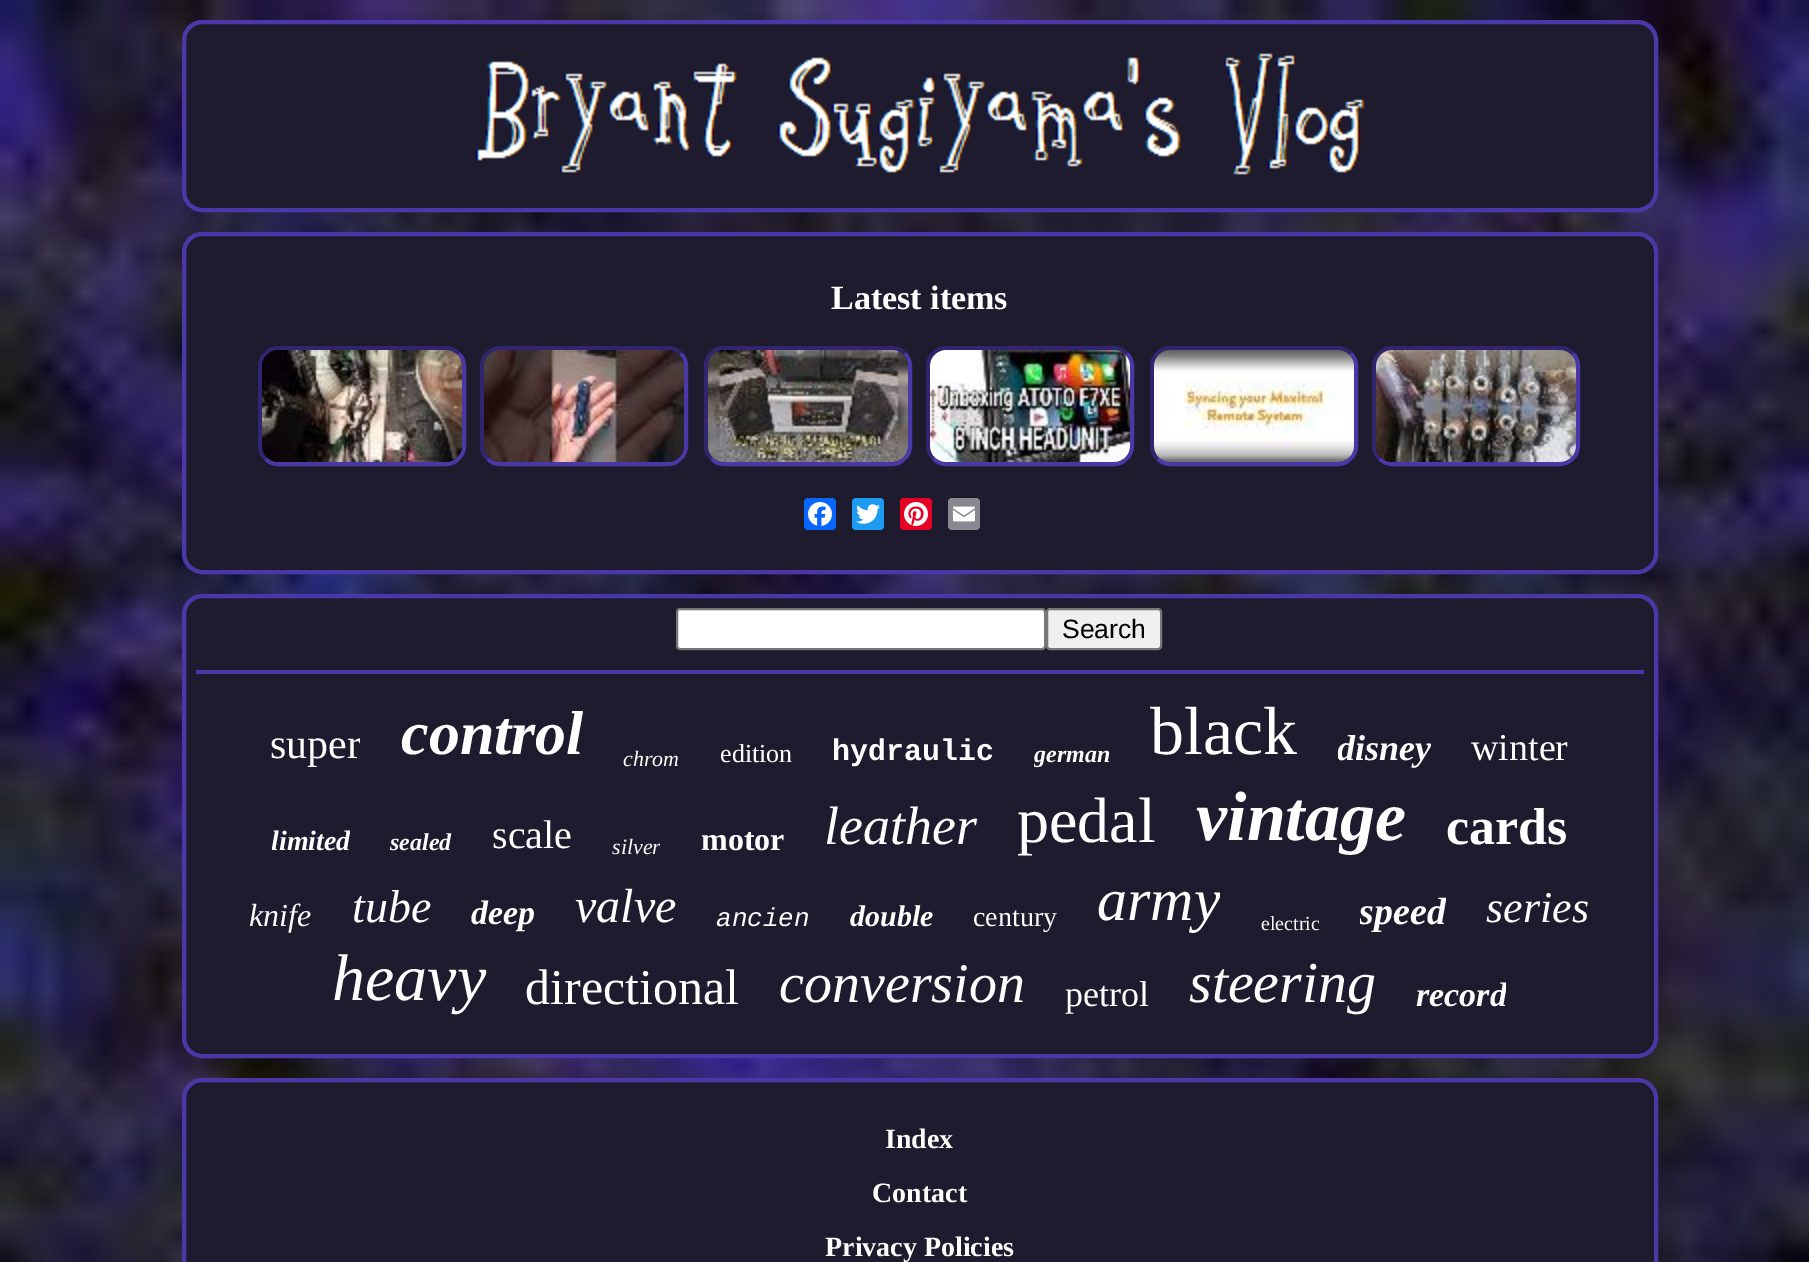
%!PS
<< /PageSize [1809 1262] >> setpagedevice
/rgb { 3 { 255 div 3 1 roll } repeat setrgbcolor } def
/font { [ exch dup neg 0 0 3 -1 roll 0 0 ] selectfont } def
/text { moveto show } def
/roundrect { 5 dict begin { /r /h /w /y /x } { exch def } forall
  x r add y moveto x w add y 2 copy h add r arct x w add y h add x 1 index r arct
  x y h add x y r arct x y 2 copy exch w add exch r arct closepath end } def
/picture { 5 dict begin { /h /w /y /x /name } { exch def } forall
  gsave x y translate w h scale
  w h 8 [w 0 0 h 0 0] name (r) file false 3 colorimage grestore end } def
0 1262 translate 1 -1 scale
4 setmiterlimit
255 255 255 rgb
0 0 1809 1262 rectfill
(img_01.rgb) 0 0 1809 1262 picture
30 27 46 rgb
184 22 1472 188 18 roundrect gsave fill grestore
74 56 168 rgb
4 setlinewidth
stroke
(img_02.rgb) 475 53 890 122 picture
30 27 46 rgb
184 234 1472 338 18 roundrect gsave fill grestore
74 56 168 rgb
stroke
458.5 353.5 moveto 3.5 3 5.5 7.5 5.5 12.5 rcurveto 0 80 rlineto 0 5 -2 9.5 -5.5 12.5 rcurveto -3 3.5 -7.5 5.5 -12.5 5.5 rcurveto -168 0 rlineto -5 0 -9.5 -2 -12.5 -5.5 rcurveto stroke
49 37 112 rgb
265.5 458.5 moveto -3.5 -3 -5.5 -7.5 -5.5 -12.5 rcurveto 0 -80 rlineto 0 -5 2 -9.5 5.5 -12.5 rcurveto 3 -3.5 7.5 -5.5 12.5 -5.5 rcurveto 168 0 rlineto 5 0 9.5 2 12.5 5.5 rcurveto stroke
74 56 168 rgb
680.5 353.5 moveto 3.5 3 5.5 7.5 5.5 12.5 rcurveto 0 80 rlineto 0 5 -2 9.5 -5.5 12.5 rcurveto -3 3.5 -7.5 5.5 -12.5 5.5 rcurveto -168 0 rlineto -5 0 -9.5 -2 -12.5 -5.5 rcurveto stroke
49 37 112 rgb
487.5 458.5 moveto -3.5 -3 -5.5 -7.5 -5.5 -12.5 rcurveto 0 -80 rlineto 0 -5 2 -9.5 5.5 -12.5 rcurveto 3 -3.5 7.5 -5.5 12.5 -5.5 rcurveto 168 0 rlineto 5 0 9.5 2 12.5 5.5 rcurveto stroke
74 56 168 rgb
904.5 353.5 moveto 3.5 3 5.5 7.5 5.5 12.5 rcurveto 0 80 rlineto 0 5 -2 9.5 -5.5 12.5 rcurveto -3 3.5 -7.5 5.5 -12.5 5.5 rcurveto -168 0 rlineto -5 0 -9.5 -2 -12.5 -5.5 rcurveto stroke
49 37 112 rgb
711.5 458.5 moveto -3.5 -3 -5.5 -7.5 -5.5 -12.5 rcurveto 0 -80 rlineto 0 -5 2 -9.5 5.5 -12.5 rcurveto 3 -3.5 7.5 -5.5 12.5 -5.5 rcurveto 168 0 rlineto 5 0 9.5 2 12.5 5.5 rcurveto stroke
74 56 168 rgb
1126.5 353.5 moveto 3.5 3 5.5 7.5 5.5 12.5 rcurveto 0 80 rlineto 0 5 -2 9.5 -5.5 12.5 rcurveto -3 3.5 -7.5 5.5 -12.5 5.5 rcurveto -168 0 rlineto -5 0 -9.5 -2 -12.5 -5.5 rcurveto stroke
49 37 112 rgb
933.5 458.5 moveto -3.5 -3 -5.5 -7.5 -5.5 -12.5 rcurveto 0 -80 rlineto 0 -5 2 -9.5 5.5 -12.5 rcurveto 3 -3.5 7.5 -5.5 12.5 -5.5 rcurveto 168 0 rlineto 5 0 9.5 2 12.5 5.5 rcurveto stroke
74 56 168 rgb
1350.5 353.5 moveto 3.5 3 5.5 7.5 5.5 12.5 rcurveto 0 80 rlineto 0 5 -2 9.5 -5.5 12.5 rcurveto -3 3.5 -7.5 5.5 -12.5 5.5 rcurveto -168 0 rlineto -5 0 -9.5 -2 -12.5 -5.5 rcurveto stroke
49 37 112 rgb
1157.5 458.5 moveto -3.5 -3 -5.5 -7.5 -5.5 -12.5 rcurveto 0 -80 rlineto 0 -5 2 -9.5 5.5 -12.5 rcurveto 3 -3.5 7.5 -5.5 12.5 -5.5 rcurveto 168 0 rlineto 5 0 9.5 2 12.5 5.5 rcurveto stroke
74 56 168 rgb
1572.5 353.5 moveto 3.5 3 5.5 7.5 5.5 12.5 rcurveto 0 80 rlineto 0 5 -2 9.5 -5.5 12.5 rcurveto -3 3.5 -7.5 5.5 -12.5 5.5 rcurveto -168 0 rlineto -5 0 -9.5 -2 -12.5 -5.5 rcurveto stroke
49 37 112 rgb
1379.5 458.5 moveto -3.5 -3 -5.5 -7.5 -5.5 -12.5 rcurveto 0 -80 rlineto 0 -5 2 -9.5 5.5 -12.5 rcurveto 3 -3.5 7.5 -5.5 12.5 -5.5 rcurveto 168 0 rlineto 5 0 9.5 2 12.5 5.5 rcurveto stroke
(img_03.rgb) 262 350 200 112 picture
(img_04.rgb) 484 350 200 112 picture
(img_05.rgb) 708 350 200 112 picture
(img_06.rgb) 930 350 200 112 picture
(img_07.rgb) 1154 350 200 112 picture
(img_08.rgb) 1376 350 200 112 picture
8 102 255 rgb
804 498 32 32 4 roundrect fill
(img_09.rgb) 808 502 24 24 picture
29 155 240 rgb
852 498 32 32 4 roundrect fill
(img_10.rgb) 856 504 24 20 picture
230 0 35 rgb
900 498 32 32 4 roundrect fill
(img_11.rgb) 904 502 24 24 picture
136 137 144 rgb
948 498 32 32 4 roundrect fill
(img_12.rgb) 953 506 22 16 picture
30 27 46 rgb
184 596 1472 460 18 roundrect gsave fill grestore
74 56 168 rgb
stroke
255 255 255 rgb
677 609 368 40 3 roundrect gsave fill grestore
118 118 118 rgb
2 setlinewidth
stroke
239 239 239 rgb
1047 609 114 40 3 roundrect gsave fill grestore
118 118 118 rgb
stroke
74 56 168 rgb
196 670 1448 4 rectfill
30 27 46 rgb
184 1080 1472 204 18 roundrect gsave fill grestore
74 56 168 rgb
4 setlinewidth
stroke
/LiberationSerif-Bold 34 font
255 255 255 rgb
(Latest items) 831 309 text
/LiberationSans-Regular 26.5 font
0 0 0 rgb
(Search) 1062 638 text
gsave
270 720 90 50 rectclip
/LiberationSerif-Regular 42 font
255 255 255 rgb
(super) 270 758 text
grestore
/LiberationSerif-BoldItalic 62 font
255 255 255 rgb
(control) 401 754 text
/LiberationSerif-Italic 22 font
(chrom) 623 766 text
/LiberationSerif-Regular 26 font
(edition) 720 762 text
/LiberationMono-Bold 30 font
(hydraulic) 832 760 text
gsave
1034 740 76 30 rectclip
/LiberationSerif-BoldItalic 24 font
(german) 1034 762 text
grestore
/LiberationSerif-Regular 68 font
(black) 1150 754 text
gsave
1338 728 94 42 rectclip
/LiberationSerif-BoldItalic 36 font
(disney) 1337 760 text
grestore
/LiberationSerif-Regular 38 font
(winter) 1471 760 text
gsave
272 826 78 32 rectclip
/LiberationSerif-BoldItalic 28 font
(limited) 271 850 text
grestore
/LiberationSerif-BoldItalic 24 font
(sealed) 390 850 text
/LiberationSerif-Regular 40 font
(scale) 492 848 text
gsave
612 834 48 24 rectclip
/LiberationSerif-Italic 22 font
(silver) 612 854 text
grestore
/LiberationSerif-Bold 32 font
(motor) 701 850 text
/LiberationSerif-Italic 54 font
(leather) 824 844 text
/LiberationSerif-Regular 64 font
(pedal) 1017 842 text
/LiberationSerif-BoldItalic 70 font
(vintage) 1196 840 text
/LiberationSerif-Bold 52 font
(cards) 1446 844 text
/LiberationSerif-Italic 32 font
(knife) 249 926 text
/LiberationSerif-Italic 46 font
(tube) 352 922 text
/LiberationSerif-BoldItalic 34 font
(deep) 471 924 text
/LiberationSerif-Italic 48 font
(valve) 575 922 text
/LiberationMono-Italic 26 font
(ancien) 716 926 text
/LiberationSerif-BoldItalic 30 font
(double) 850 926 text
/LiberationSerif-Regular 28 font
(century) 973 926 text
gsave
1098 866 122 68 rectclip
/LiberationSerif-Italic 60 font
(army) 1097 920 text
grestore
/LiberationSerif-Regular 20 font
(electric) 1261 930 text
gsave
1360 890 86 44 rectclip
/LiberationSerif-BoldItalic 38 font
(speed) 1359 924 text
grestore
/LiberationSerif-Italic 44 font
(series) 1486 922 text
/LiberationSerif-Italic 66 font
(heavy) 332 1000 text
/LiberationSerif-Regular 50 font
(directional) 525 1004 text
/LiberationSerif-Italic 56 font
(conversion) 779 1002 text
/LiberationSerif-Regular 36 font
(petrol) 1065 1006 text
/LiberationSerif-Italic 58 font
(steering) 1189 1002 text
gsave
1416 976 90 40 rectclip
/LiberationSerif-BoldItalic 34 font
(record) 1416 1006 text
grestore
/LiberationSerif-Bold 28 font
(Index) 885 1148 text
(Contact) 872 1202 text
(Privacy Policies) 825 1256 text
showpage
